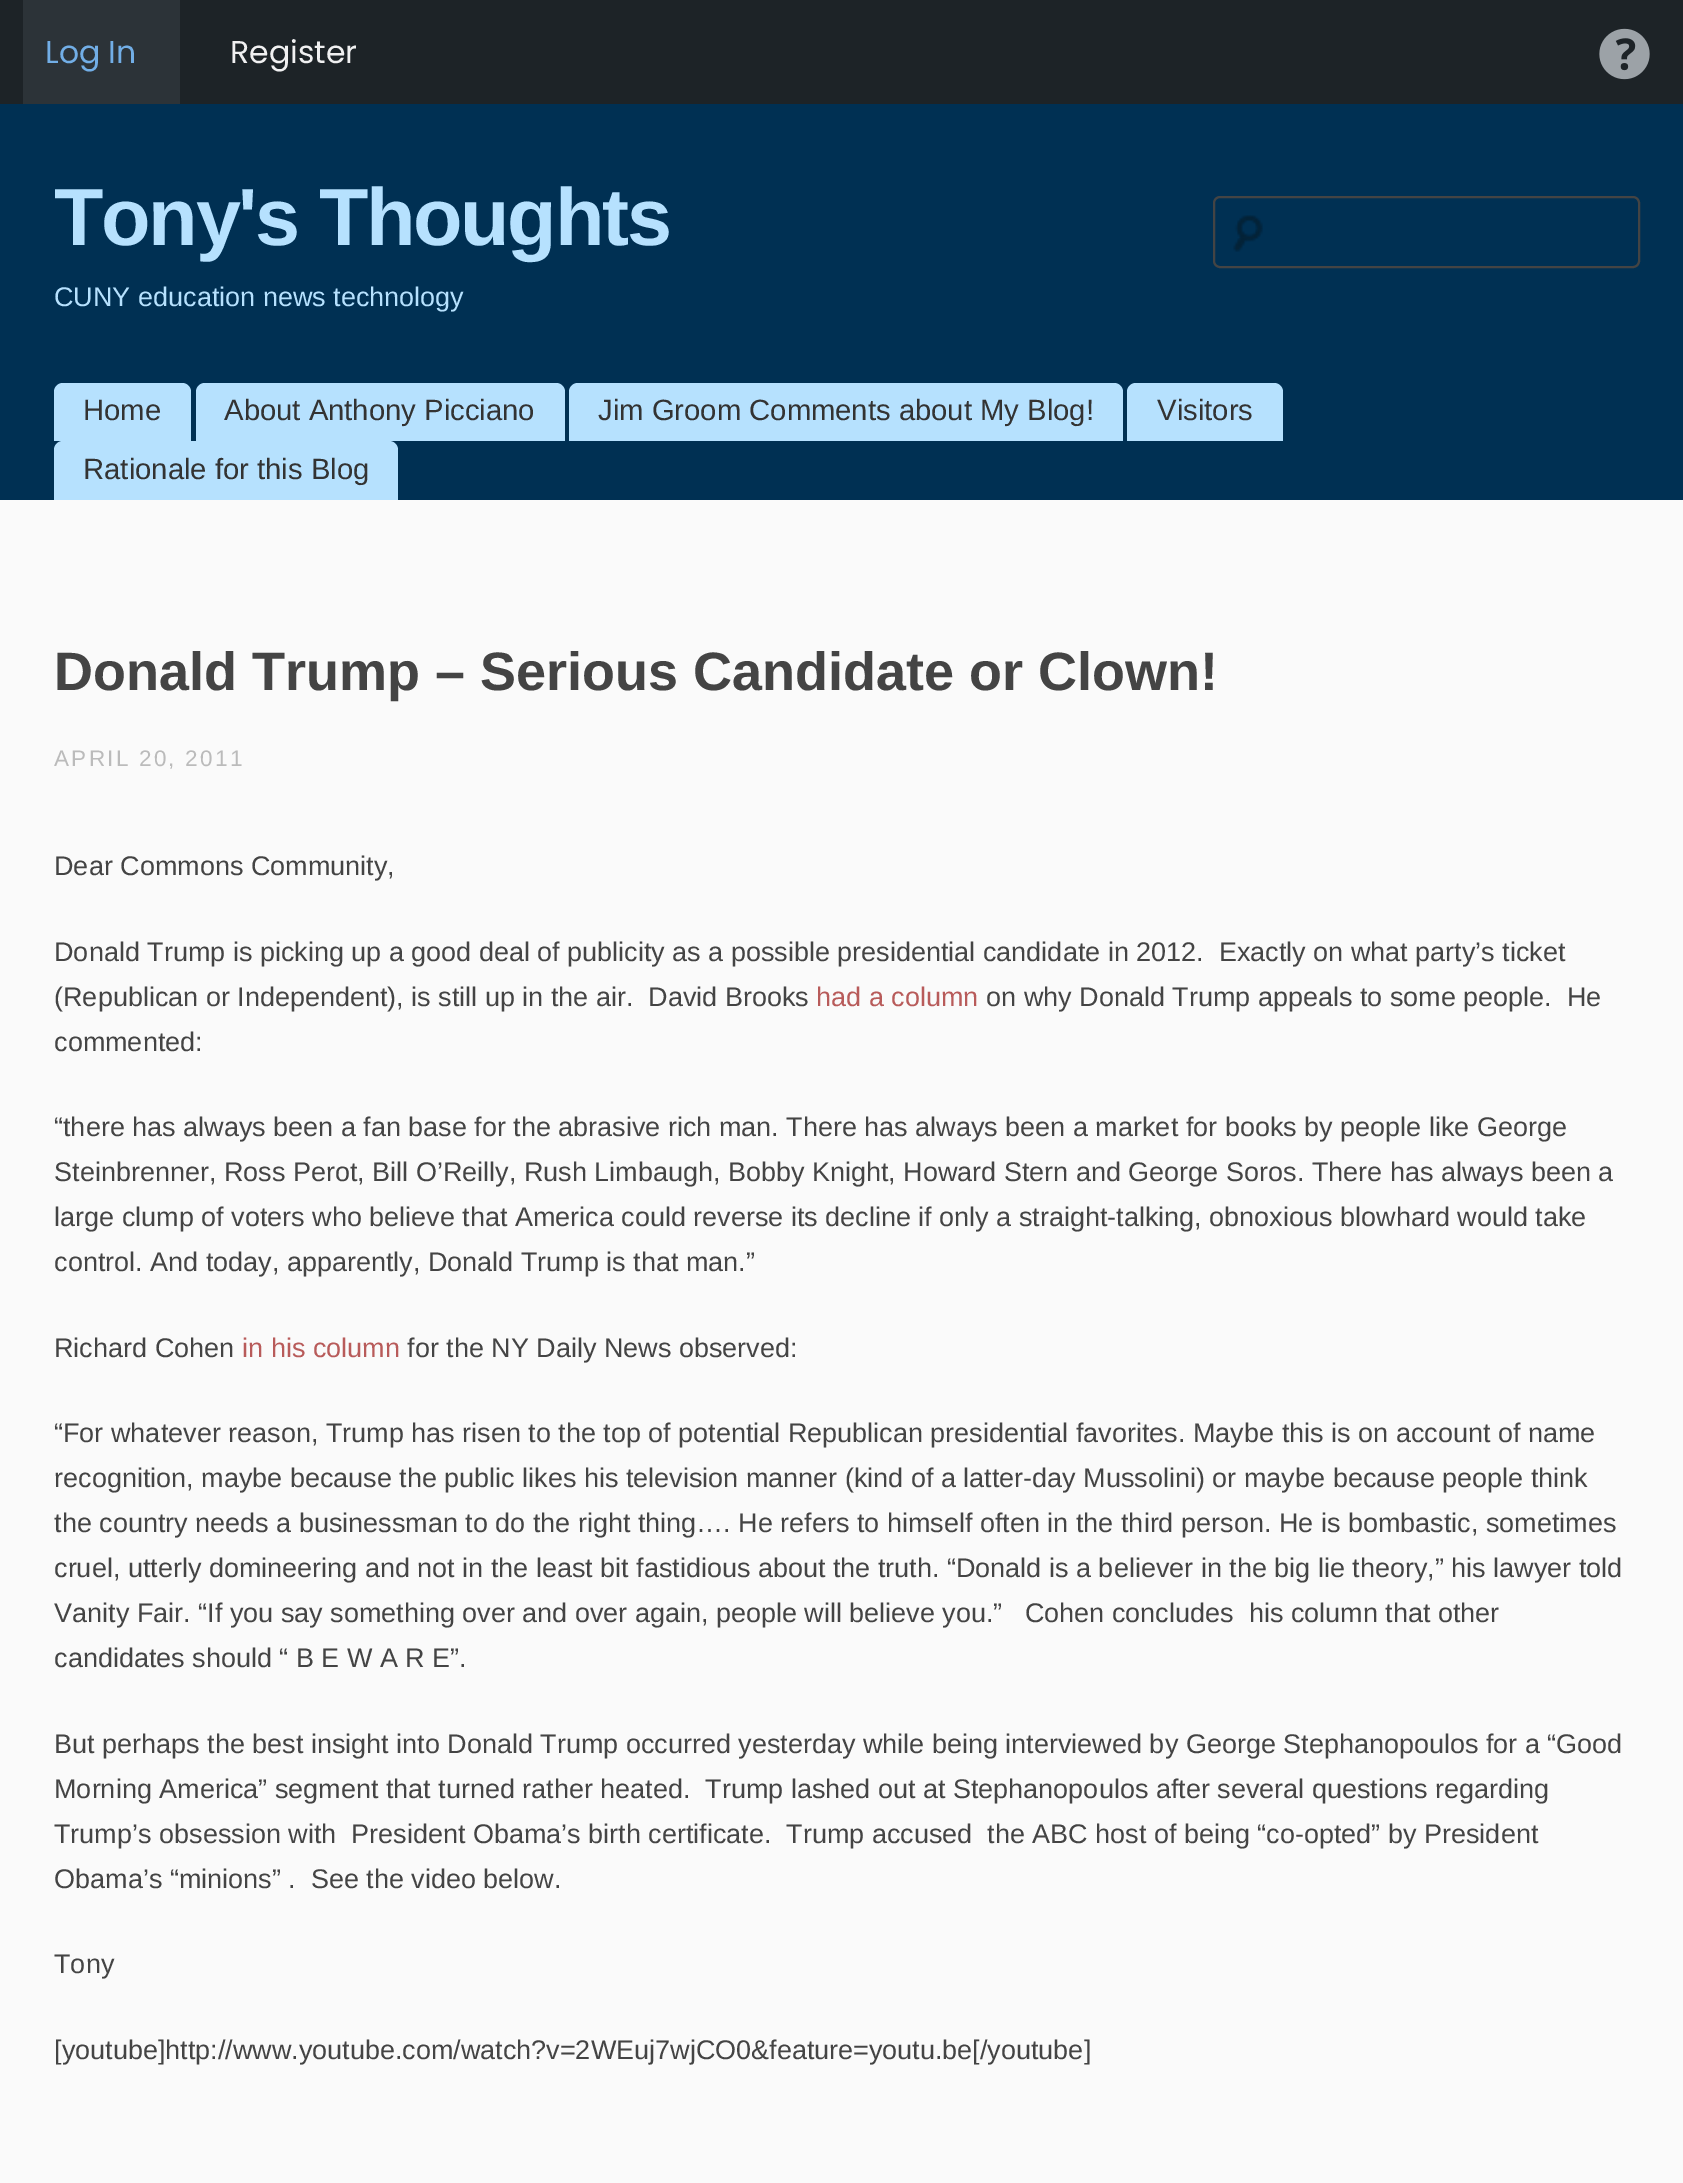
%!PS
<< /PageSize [1683 2183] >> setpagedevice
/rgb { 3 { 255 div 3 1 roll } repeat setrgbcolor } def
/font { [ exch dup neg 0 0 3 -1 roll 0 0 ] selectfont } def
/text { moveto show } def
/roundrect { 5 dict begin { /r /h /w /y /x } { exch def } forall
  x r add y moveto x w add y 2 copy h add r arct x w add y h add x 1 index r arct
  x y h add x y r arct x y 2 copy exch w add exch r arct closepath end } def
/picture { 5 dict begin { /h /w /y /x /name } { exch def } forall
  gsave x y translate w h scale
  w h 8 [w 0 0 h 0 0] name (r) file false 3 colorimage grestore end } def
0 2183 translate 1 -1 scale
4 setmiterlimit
250 250 250 rgb
0 0 1683 2183 rectfill
29 35 39 rgb
0 0 1683 104 rectfill
44 51 56 rgb
23 0 157 104 rectfill
(img_01.rgb) 1599 28 51 52 picture
0 48 83 rgb
0 104 1683 396 rectfill
(img_02.rgb) 1233 215 30 37 picture
68 68 68 rgb
2 setlinewidth
1214 197 425 70 6 roundrect stroke
182 225 254 rgb
63 383 moveto 119 0 rlineto 5 0 9 4 9 9 rcurveto 0 49 rlineto -137 0 rlineto 0 -49 rlineto 0 -5 4 -9 9 -9 rcurveto closepath fill
205 383 moveto 351 0 rlineto 5 0 9 4 9 9 rcurveto 0 49 rlineto -369 0 rlineto 0 -49 rlineto 0 -5 4 -9 9 -9 rcurveto closepath fill
578 383 moveto 536 0 rlineto 5 0 9 4 9 9 rcurveto 0 49 rlineto -554 0 rlineto 0 -49 rlineto 0 -5 4 -9 9 -9 rcurveto closepath fill
1136 383 moveto 138 0 rlineto 5 0 9 4 9 9 rcurveto 0 49 rlineto -156 0 rlineto 0 -49 rlineto 0 -5 4 -9 9 -9 rcurveto closepath fill
63 441 moveto 326 0 rlineto 5 0 9 4 9 9 rcurveto 0 50 rlineto -344 0 rlineto 0 -50 rlineto 0 -5 4 -9 9 -9 rcurveto closepath fill
/Poppins-Regular 31.5 font
114 174 230 rgb
(Log In) 45 63 text
240 240 241 rgb
(Register) 230 63 text
/LiberationSans-Bold 81 font
182 225 254 rgb
54 245 moveto -2.25 0 (Tony's Thoughts) ashow
/LiberationSans-Regular 27 font
(CUNY education news technology) 54 306 text
/LiberationSans-Regular 29.25 font
51 51 51 rgb
(Home) 83 420 text
(About Anthony Picciano) 224 420 text
(Jim Groom Comments about My Blog!) 598 420 text
(Visitors) 1157 420 text
(Rationale for this Blog) 83 479 text
/LiberationSans-Bold 54 font
68 68 68 rgb
(Donald Trump – Serious Candidate or Clown!) 54 690 text
/LiberationSans-Regular 22.5 font
187 187 187 rgb
54 766 moveto 2.25 0 (APRIL 20, 2011) ashow
/LiberationSans-Regular 27 font
68 68 68 rgb
(Dear Commons Community,) 54 875 text
(Donald Trump is picking up a good deal of publicity as a possible presidential candidate in 2012.  Exactly on what party’s ticket) 54 961 text
(\(Republican or Independent\), is still up in the air.  David Brooks) 54 1006 text
184 91 90 rgb
(had a column) 816 1006 text
68 68 68 rgb
(on why Donald Trump appeals to some people.  He) 986 1006 text
(commented:) 54 1051 text
(“there has always been a fan base for the abrasive rich man. There has always been a market for books by people like George) 54 1136 text
(Steinbrenner, Ross Perot, Bill O’Reilly, Rush Limbaugh, Bobby Knight, Howard Stern and George Soros. There has always been a) 54 1181 text
(large clump of voters who believe that America could reverse its decline if only a straight-talking, obnoxious blowhard would take) 54 1226 text
(control. And today, apparently, Donald Trump is that man.”) 54 1271 text
(Richard Cohen) 54 1357 text
184 91 90 rgb
(in his column) 242 1357 text
68 68 68 rgb
(for the NY Daily News observed:) 407 1357 text
(“For whatever reason, Trump has risen to the top of potential Republican presidential favorites. Maybe this is on account of name) 54 1442 text
(recognition, maybe because the public likes his television manner \(kind of a latter-day Mussolini\) or maybe because people think) 54 1487 text
(the country needs a businessman to do the right thing…. He refers to himself often in the third person. He is bombastic, sometimes) 54 1532 text
(cruel, utterly domineering and not in the least bit fastidious about the truth. “Donald is a believer in the big lie theory,” his lawyer told) 54 1577 text
(Vanity Fair. “If you say something over and over again, people will believe you.”   Cohen concludes  his column that other) 54 1622 text
(candidates should “ B E W A R E”.) 54 1667 text
(But perhaps the best insight into Donald Trump occurred yesterday while being interviewed by George Stephanopoulos for a “Good) 54 1753 text
(Morning America” segment that turned rather heated.  Trump lashed out at Stephanopoulos after several questions regarding) 54 1798 text
(Trump’s obsession with  President Obama’s birth certificate.  Trump accused  the ABC host of being “co-opted” by President) 54 1843 text
(Obama’s “minions” .  See the video below.) 54 1888 text
(Tony) 54 1973 text
([youtube]http://www.youtube.com/watch?v=2WEuj7wjCO0&feature=youtu.be[/youtube]) 54 2059 text
showpage
